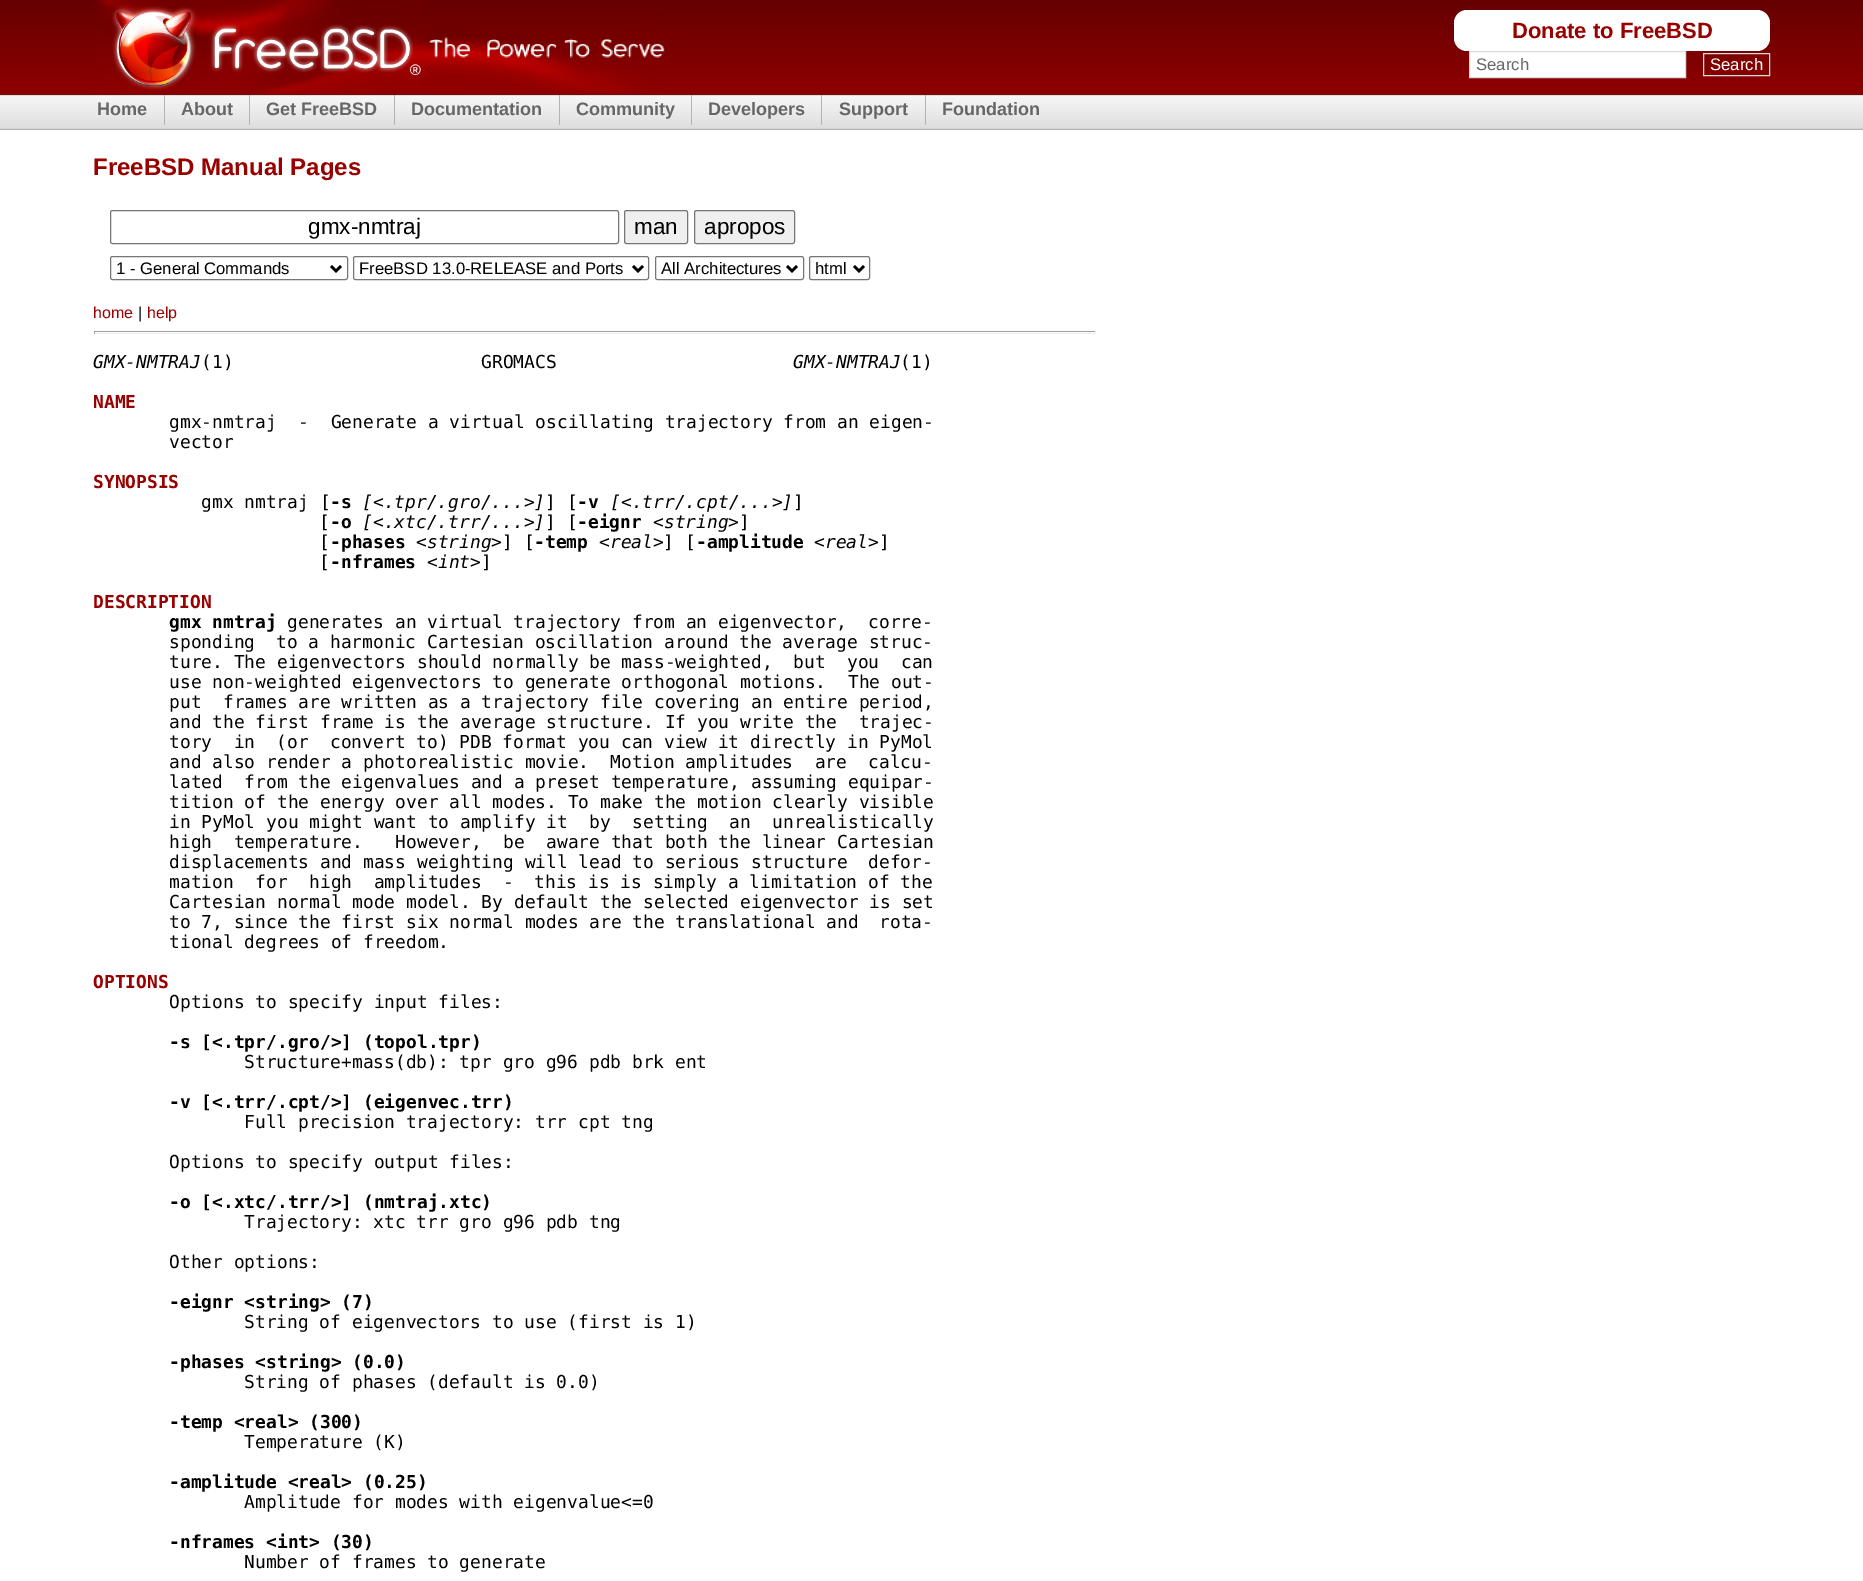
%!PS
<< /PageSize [1863 1581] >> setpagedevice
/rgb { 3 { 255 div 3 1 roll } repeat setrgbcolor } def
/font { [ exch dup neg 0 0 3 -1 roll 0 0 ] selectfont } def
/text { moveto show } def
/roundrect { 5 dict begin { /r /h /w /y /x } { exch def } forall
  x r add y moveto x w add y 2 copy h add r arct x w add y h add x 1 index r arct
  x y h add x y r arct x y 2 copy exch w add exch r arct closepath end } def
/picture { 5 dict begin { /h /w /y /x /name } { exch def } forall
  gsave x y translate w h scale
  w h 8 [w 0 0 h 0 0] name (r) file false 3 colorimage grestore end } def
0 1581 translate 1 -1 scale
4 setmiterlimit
255 255 255 rgb
0 0 1863 1581 rectfill
(img_01.rgb) 0 0 1863 130 picture
(img_02.rgb) 94 0 571 94 picture
1454 10 316 41 13 roundrect fill
1469.5 51.5 moveto 216 0 rlineto 0 26 rlineto -216 0 rlineto closepath gsave fill grestore
218 218 218 rgb
stroke
1703.5 53.5 66 22 rectstroke
180 180 180 rgb
164 95 1 30 rectfill
249 95 1 30 rectfill
394 95 1 30 rectfill
559 95 1 30 rectfill
691 95 1 30 rectfill
821 95 1 30 rectfill
925 95 1 30 rectfill
118 118 118 rgb
110.5 210.5 508 33 2 roundrect stroke
239 239 239 rgb
624.5 210.5 63 33 2 roundrect gsave fill grestore
118 118 118 rgb
stroke
239 239 239 rgb
694.5 210.5 100 33 2 roundrect gsave fill grestore
118 118 118 rgb
stroke
110.5 256.5 237 23 2 roundrect stroke
0 0 0 rgb
2.5 setlinewidth
331 266 moveto 5 5 rlineto 5 -5 rlineto stroke
118 118 118 rgb
1 setlinewidth
353.5 256.5 295 23 2 roundrect stroke
0 0 0 rgb
2.5 setlinewidth
633 266 moveto 5 5 rlineto 5 -5 rlineto stroke
118 118 118 rgb
1 setlinewidth
655.5 256.5 148 23 2 roundrect stroke
0 0 0 rgb
2.5 setlinewidth
787 266 moveto 5 5 rlineto 5 -5 rlineto stroke
118 118 118 rgb
1 setlinewidth
809.5 256.5 60 23 2 roundrect stroke
0 0 0 rgb
2.5 setlinewidth
854 266 moveto 5 5 rlineto 5 -5 rlineto stroke
159 159 159 rgb
94 331 1002 1 rectfill
238 238 238 rgb
1095 331 1 3 rectfill
94 333 1002 1 rectfill
159 159 159 rgb
94 331 1 3 rectfill
/LiberationSans-Bold 22 font
153 0 0 rgb
(Donate to FreeBSD) 1512 38 text
/LiberationSans-Regular 16.7 font
102 102 102 rgb
(Search) 1476 70 text
255 255 255 rgb
(Search) 1710 70 text
/LiberationSans-Bold 18 font
102 102 102 rgb
(Home) 97 115 text
(About) 181 115 text
(Get FreeBSD) 266 115 text
(Documentation) 411 115 text
(Community) 576 115 text
(Developers) 708 115 text
(Support) 839 115 text
(Foundation) 942 115 text
/LiberationSans-Bold 24 font
153 0 0 rgb
(FreeBSD Manual Pages) 93 175 text
/LiberationSans-Regular 22.5 font
0 0 0 rgb
(gmx-nmtraj) 308 234 text
(man) 634 234 text
(apropos) 704 234 text
/LiberationSans-Regular 16.7 font
(1 - General Commands) 116 274 text
(FreeBSD 13.0-RELEASE and Ports) 359 274 text
(All Architectures) 661 274 text
(html) 815 274 text
/LiberationSans-Regular 16 font
153 0 0 rgb
(home) 93 318 text
0 0 0 rgb
(|) 138 318 text
153 0 0 rgb
(help) 147 318 text
/DejaVuSansMono-Italic 17.9 font
0 0 0 rgb
(GMX-NMTRAJ) 93 368 text
/DejaVuSansMono-Regular 17.9 font
(\(1\)) 201 368 text
(GROMACS) 481 368 text
/DejaVuSansMono-Italic 17.9 font
(GMX-NMTRAJ) 793 368 text
/DejaVuSansMono-Regular 17.9 font
(\(1\)) 900 368 text
/DejaVuSansMono-Bold 17.9 font
153 0 0 rgb
(NAME) 93 408 text
/DejaVuSansMono-Regular 17.9 font
0 0 0 rgb
(gmx-nmtraj  -  Generate a virtual oscillating trajectory from an eigen-) 169 428 text
(vector) 169 448 text
/DejaVuSansMono-Bold 17.9 font
153 0 0 rgb
(SYNOPSIS) 93 488 text
/DejaVuSansMono-Regular 17.9 font
0 0 0 rgb
(gmx nmtraj [) 201 508 text
/DejaVuSansMono-Bold 17.9 font
(-s) 330 508 text
/DejaVuSansMono-Italic 17.9 font
([<.tpr/.gro/...>]) 362 508 text
/DejaVuSansMono-Regular 17.9 font
(] [) 545 508 text
/DejaVuSansMono-Bold 17.9 font
(-v) 577 508 text
/DejaVuSansMono-Italic 17.9 font
([<.trr/.cpt/...>]) 610 508 text
/DejaVuSansMono-Regular 17.9 font
(]) 793 508 text
([) 319 528 text
/DejaVuSansMono-Bold 17.9 font
(-o) 330 528 text
/DejaVuSansMono-Italic 17.9 font
([<.xtc/.trr/...>]) 362 528 text
/DejaVuSansMono-Regular 17.9 font
(] [) 545 528 text
/DejaVuSansMono-Bold 17.9 font
(-eignr) 577 528 text
/DejaVuSansMono-Italic 17.9 font
(<string>) 653 528 text
/DejaVuSansMono-Regular 17.9 font
(]) 739 528 text
([) 319 548 text
/DejaVuSansMono-Bold 17.9 font
(-phases) 330 548 text
/DejaVuSansMono-Italic 17.9 font
(<string>) 416 548 text
/DejaVuSansMono-Regular 17.9 font
(] [) 502 548 text
/DejaVuSansMono-Bold 17.9 font
(-temp) 534 548 text
/DejaVuSansMono-Italic 17.9 font
(<real>) 599 548 text
/DejaVuSansMono-Regular 17.9 font
(] [) 663 548 text
/DejaVuSansMono-Bold 17.9 font
(-amplitude) 696 548 text
/DejaVuSansMono-Italic 17.9 font
(<real>) 814 548 text
/DejaVuSansMono-Regular 17.9 font
(]) 879 548 text
([) 319 568 text
/DejaVuSansMono-Bold 17.9 font
(-nframes) 330 568 text
/DejaVuSansMono-Italic 17.9 font
(<int>) 427 568 text
/DejaVuSansMono-Regular 17.9 font
(]) 481 568 text
/DejaVuSansMono-Bold 17.9 font
153 0 0 rgb
(DESCRIPTION) 93 608 text
0 0 0 rgb
(gmx nmtraj) 169 628 text
/DejaVuSansMono-Regular 17.9 font
(generates an virtual trajectory from an eigenvector,) 287 628 text
(corre-) 868 628 text
(sponding) 169 648 text
(to a harmonic Cartesian oscillation around the average struc-) 276 648 text
(ture. The eigenvectors should normally be mass-weighted,) 169 668 text
(but  you  can) 793 668 text
(use non-weighted eigenvectors to generate orthogonal motions.  The out-) 169 688 text
(put  frames are written as a trajectory file covering an entire period,) 169 708 text
(and the first frame is the average structure. If you write the  trajec-) 169 728 text
(tory  in) 169 748 text
(\(or  convert to\) PDB format you can view it directly in PyMol) 276 748 text
(and also render a photorealistic movie.) 169 768 text
(Motion amplitudes  are) 610 768 text
(calcu-) 868 768 text
(lated  from the eigenvalues and a preset temperature, assuming equipar-) 169 788 text
(tition of the energy over all modes. To make the motion clearly visible) 169 808 text
(in PyMol you might want to amplify it  by  setting  an  unrealistically) 169 828 text
(high  temperature.   However,  be  aware that both the linear Cartesian) 169 848 text
(displacements and mass weighting will lead to serious structure) 169 868 text
(defor-) 868 868 text
(mation  for  high  amplitudes  -) 169 888 text
(this is is simply a limitation of the) 534 888 text
(Cartesian normal mode model. By default the selected eigenvector is set) 169 908 text
(to 7, since the first six normal modes are the translational and) 169 928 text
(rota-) 879 928 text
(tional degrees of freedom.) 169 948 text
/DejaVuSansMono-Bold 17.9 font
153 0 0 rgb
(OPTIONS) 93 988 text
/DejaVuSansMono-Regular 17.9 font
0 0 0 rgb
(Options to specify input files:) 169 1008 text
/DejaVuSansMono-Bold 17.9 font
(-s [<.tpr/.gro/>] \(topol.tpr\)) 169 1048 text
/DejaVuSansMono-Regular 17.9 font
(Structure+mass\(db\): tpr gro g96 pdb brk ent) 244 1068 text
/DejaVuSansMono-Bold 17.9 font
(-v [<.trr/.cpt/>] \(eigenvec.trr\)) 169 1108 text
/DejaVuSansMono-Regular 17.9 font
(Full precision trajectory: trr cpt tng) 244 1128 text
(Options to specify output files:) 169 1168 text
/DejaVuSansMono-Bold 17.9 font
(-o [<.xtc/.trr/>] \(nmtraj.xtc\)) 169 1208 text
/DejaVuSansMono-Regular 17.9 font
(Trajectory: xtc trr gro g96 pdb tng) 244 1228 text
(Other options:) 169 1268 text
/DejaVuSansMono-Bold 17.9 font
(-eignr <string> \(7\)) 169 1308 text
/DejaVuSansMono-Regular 17.9 font
(String of eigenvectors to use \(first is 1\)) 244 1328 text
/DejaVuSansMono-Bold 17.9 font
(-phases <string> \(0.0\)) 169 1368 text
/DejaVuSansMono-Regular 17.9 font
(String of phases \(default is 0.0\)) 244 1388 text
/DejaVuSansMono-Bold 17.9 font
(-temp <real> \(300\)) 169 1428 text
/DejaVuSansMono-Regular 17.9 font
(Temperature \(K\)) 244 1448 text
/DejaVuSansMono-Bold 17.9 font
(-amplitude <real> \(0.25\)) 169 1488 text
/DejaVuSansMono-Regular 17.9 font
(Amplitude for modes with eigenvalue<=0) 244 1508 text
/DejaVuSansMono-Bold 17.9 font
(-nframes <int> \(30\)) 169 1548 text
/DejaVuSansMono-Regular 17.9 font
(Number of frames to generate) 244 1568 text
showpage
